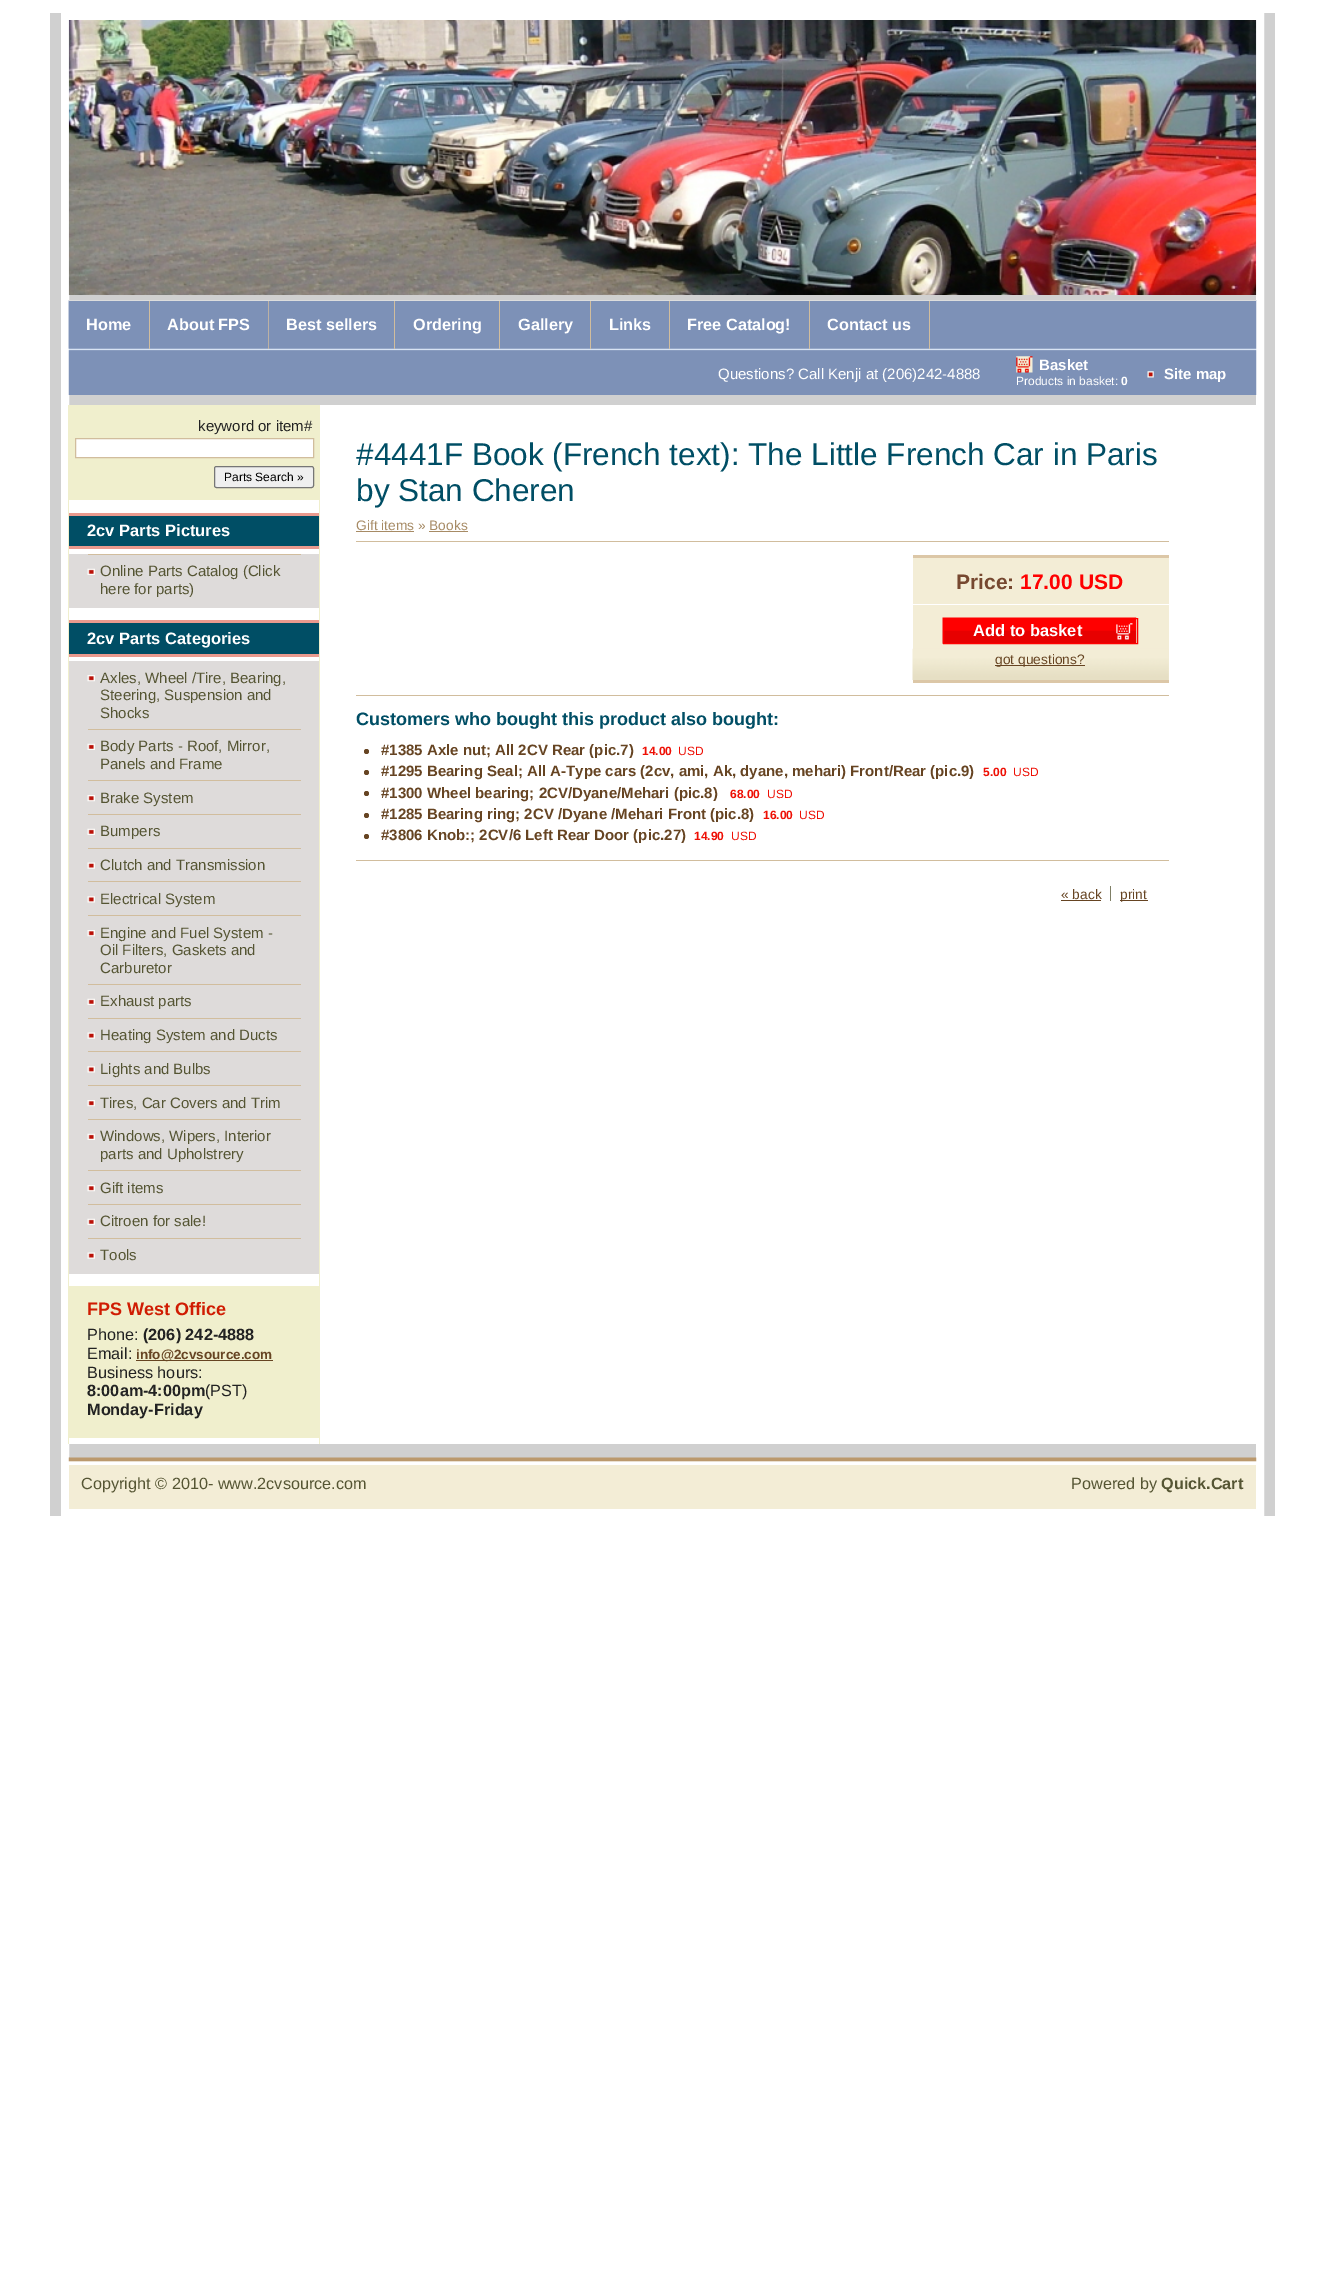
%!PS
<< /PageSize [1323 2285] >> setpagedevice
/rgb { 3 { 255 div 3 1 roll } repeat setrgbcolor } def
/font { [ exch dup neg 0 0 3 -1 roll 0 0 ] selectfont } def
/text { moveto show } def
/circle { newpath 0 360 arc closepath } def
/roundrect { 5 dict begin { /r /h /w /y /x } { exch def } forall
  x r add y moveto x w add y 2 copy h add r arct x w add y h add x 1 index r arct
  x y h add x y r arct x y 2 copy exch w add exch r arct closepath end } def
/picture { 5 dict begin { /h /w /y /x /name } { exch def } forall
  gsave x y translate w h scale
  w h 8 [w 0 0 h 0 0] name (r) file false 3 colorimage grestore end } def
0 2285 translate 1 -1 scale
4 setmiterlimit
255 255 255 rgb
0 0 1323 2285 rectfill
208 208 208 rgb
50 13 1225 1503 rectfill
255 255 255 rgb
8 setlinewidth
65 17 1195 1495 rectstroke
(img_01.rgb) 68 20 1189 275 picture
(img_02.rgb) 68 300 1189 95 picture
221 221 221 rgb
69 300 1187 1 rectfill
(img_03.rgb) 68 301 1 48 picture
209 189 157 rgb
149 301 1 48 rectfill
268 301 1 48 rectfill
(img_04.rgb) 268 301 1 48 picture
394 301 1 48 rectfill
499 301 1 48 rectfill
590 301 1 48 rectfill
669 301 1 48 rectfill
809 301 1 48 rectfill
929 301 1 48 rectfill
(img_05.rgb) 1016 356 17 17 picture
(img_06.rgb) 1147 371 7 7 picture
255 255 255 rgb
320 405 936 1039 rectfill
240 239 205 rgb
68 405 252 1039 rectfill
255 255 255 rgb
69 500 250 944 rectfill
75.5 438.5 moveto 238 0 rlineto 0 19 rlineto -238 0 rlineto closepath gsave fill grestore
209 189 157 rgb
1 setlinewidth
stroke
239 239 239 rgb
214.5 466.5 99 21 2 roundrect gsave fill grestore
118 118 118 rgb
stroke
0 78 101 rgb
69 516 250 30 rectfill
234 154 142 rgb
69 513 250 3 rectfill
69 546 250 3 rectfill
222 219 218 rgb
69 554 250 54 rectfill
(img_07.rgb) 87 568 8 7 picture
209 189 157 rgb
88 554 213 1 rectfill
0 78 101 rgb
69 623 250 31 rectfill
234 154 142 rgb
69 620 250 3 rectfill
69 654 250 3 rectfill
222 219 218 rgb
69 661 250 613 rectfill
(img_08.rgb) 87 675 8 7 picture
(img_07.rgb) 87 743 8 7 picture
209 189 157 rgb
88 729 213 1 rectfill
(img_08.rgb) 87 795 8 7 picture
88 780 213 1 rectfill
(img_07.rgb) 87 828 8 7 picture
88 814 213 1 rectfill
(img_09.rgb) 87 862 8 7 picture
88 848 213 1 rectfill
(img_10.rgb) 87 896 8 7 picture
88 881 213 1 rectfill
(img_08.rgb) 87 930 8 7 picture
88 915 213 1 rectfill
(img_07.rgb) 87 998 8 7 picture
88 984 213 1 rectfill
(img_09.rgb) 87 1032 8 7 picture
88 1018 213 1 rectfill
(img_10.rgb) 87 1066 8 7 picture
88 1051 213 1 rectfill
(img_08.rgb) 87 1100 8 7 picture
88 1085 213 1 rectfill
(img_07.rgb) 87 1133 8 7 picture
88 1119 213 1 rectfill
(img_08.rgb) 87 1185 8 7 picture
88 1170 213 1 rectfill
(img_07.rgb) 87 1218 8 7 picture
88 1204 213 1 rectfill
(img_09.rgb) 87 1252 8 7 picture
88 1238 213 1 rectfill
240 239 205 rgb
69 1286 250 152 rectfill
102 68 34 rgb
136 1360 137 1 rectfill
209 189 157 rgb
356 860 813 1 rectfill
356 541 813 1 rectfill
167 139 101 rgb
356 531 58 1 rectfill
429 531 39 1 rectfill
243 237 214 rgb
913 558 256 122 rectfill
(img_11.rgb) 912 648 257 32 picture
220 199 167 rgb
913 555 256 3 rectfill
913 680 256 3 rectfill
255 255 255 rgb
913 604 256 1 rectfill
(img_12.rgb) 942 617 195 27 picture
255 0 0 rgb
943.5 618.5 194 25 rectstroke
243 237 214 rgb
995 659 90 6 rectfill
102 68 34 rgb
995 665 90 1 rectfill
209 189 157 rgb
356 695 813 1 rectfill
102 68 34 rgb
366.5 751.5 2.5 circle fill
366.5 772.5 2.5 circle fill
366.5 793.5 2.5 circle fill
366.5 815.5 2.5 circle fill
366.5 836.5 2.5 circle fill
1061 900 40 1 rectfill
127 127 102 rgb
1110 886 1 15 rectfill
102 68 34 rgb
1120 900 28 1 rectfill
243 237 214 rgb
69 1465 1187 44 rectfill
(img_13.rgb) 68 1457 1189 8 picture
/LiberationSans-Bold 16.25 font
255 255 255 rgb
(Home) 86 330 text
(About FPS) 167 330 text
(Best sellers) 286 330 text
(Ordering) 413 330 text
(Gallery) 518 330 text
(Links) 609 330 text
(Free Catalog!) 687 330 text
(Contact us) 827 330 text
/LiberationSans-Regular 15 font
(Questions? Call Kenji at \(206\)242-4888) 718 379 text
/LiberationSans-Bold 15 font
(Basket) 1039 370 text
/LiberationSans-Regular 12 font
(Products in basket:) 1016 385 text
/LiberationSans-Bold 12 font
(0) 1121 385 text
/LiberationSans-Bold 15 font
(Site map) 1164 379 text
/LiberationSans-Regular 15 font
34 34 34 rgb
(keyword or item#) 198 431 text
/LiberationSans-Regular 12 font
0 0 0 rgb
(Parts Search ») 224 481 text
/LiberationSans-Bold 16.5 font
255 255 255 rgb
(2cv Parts Pictures) 87 536 text
/LiberationSans-Regular 15 font
85 85 51 rgb
(Online Parts Catalog \(Click) 100 576 text
(here for parts\)) 100 594 text
/LiberationSans-Bold 16.5 font
255 255 255 rgb
(2cv Parts Categories) 87 644 text
/LiberationSans-Regular 15 font
85 85 51 rgb
(Axles, Wheel /Tire, Bearing,) 100 683 text
(Steering, Suspension and) 100 700 text
(Shocks) 100 718 text
(Body Parts - Roof, Mirror,) 100 751 text
(Panels and Frame) 100 769 text
(Brake System) 100 803 text
(Bumpers) 100 836 text
(Clutch and Transmission) 100 870 text
(Electrical System) 100 904 text
(Engine and Fuel System -) 100 938 text
(Oil Filters, Gaskets and) 100 955 text
(Carburetor) 100 973 text
(Exhaust parts) 100 1006 text
(Heating System and Ducts) 100 1040 text
(Lights and Bulbs) 100 1074 text
(Tires, Car Covers and Trim) 100 1108 text
(Windows, Wipers, Interior) 100 1141 text
(parts and Upholstrery) 100 1159 text
(Gift items) 100 1193 text
(Citroen for sale!) 100 1226 text
(Tools) 100 1260 text
/LiberationSans-Bold 18 font
208 28 2 rgb
(FPS West Office) 87 1315 text
/LiberationSans-Regular 16.25 font
34 34 34 rgb
(Phone:) 87 1340 text
/LiberationSans-Bold 16.25 font
(\(206\) 242-4888) 143 1340 text
/LiberationSans-Regular 16.25 font
(Email:) 87 1359 text
/LiberationSans-Bold 13.5 font
102 68 34 rgb
(info@2cvsource.com) 136 1359 text
/LiberationSans-Regular 16.25 font
34 34 34 rgb
(Business hours:) 87 1378 text
/LiberationSans-Bold 16.25 font
(8:00am-4:00pm) 87 1396 text
/LiberationSans-Regular 16.25 font
(\(PST\)) 205 1396 text
/LiberationSans-Bold 16.25 font
(Monday-Friday) 87 1415 text
/LiberationSans-Regular 31.5 font
0 78 101 rgb
(#4441F Book \(French text\): The Little French Car in Paris) 356 465 text
(by Stan Cheren) 356 501 text
/LiberationSans-Regular 13.75 font
167 139 101 rgb
(Gift items » Books) 356 530 text
/LiberationSans-Bold 21 font
118 72 48 rgb
(Price:) 956 589 text
255 0 0 rgb
(17.00) 1020 589 text
(USD) 1079 589 text
/LiberationSans-Bold 16.5 font
255 255 255 rgb
(Add to basket) 973 636 text
/LiberationSans-Regular 13.75 font
102 68 34 rgb
(got questions?) 995 664 text
/LiberationSans-Bold 18 font
0 78 101 rgb
(Customers who bought this product also bought:) 356 725 text
/LiberationSans-Bold 15 font
102 68 34 rgb
(#1385 Axle nut; All 2CV Rear \(pic.7\)) 381 755 text
/LiberationSans-Bold 12 font
238 15 4 rgb
(14.00) 642 755 text
/LiberationSans-Regular 12 font
(USD) 678 755 text
/LiberationSans-Bold 15 font
102 68 34 rgb
(#1295 Bearing Seal; All A-Type cars \(2cv, ami, Ak, dyane, mehari\) Front/Rear \(pic.9\)) 381 776 text
/LiberationSans-Bold 12 font
238 15 4 rgb
(5.00) 983 776 text
/LiberationSans-Regular 12 font
(USD) 1013 776 text
/LiberationSans-Bold 15 font
102 68 34 rgb
(#1300 Wheel bearing; 2CV/Dyane/Mehari \(pic.8\)) 381 798 text
/LiberationSans-Bold 12 font
238 15 4 rgb
(68.00) 730 798 text
/LiberationSans-Regular 12 font
(USD) 767 798 text
/LiberationSans-Bold 15 font
102 68 34 rgb
(#1285 Bearing ring; 2CV /Dyane /Mehari Front \(pic.8\)) 381 819 text
/LiberationSans-Bold 12 font
238 15 4 rgb
(16.00) 763 819 text
/LiberationSans-Regular 12 font
(USD) 799 819 text
/LiberationSans-Bold 15 font
102 68 34 rgb
(#3806 Knob:; 2CV/6 Left Rear Door \(pic.27\)) 381 840 text
/LiberationSans-Bold 12 font
238 15 4 rgb
(14.90) 694 840 text
/LiberationSans-Regular 12 font
(USD) 731 840 text
/LiberationSans-Regular 13.75 font
102 68 34 rgb
(« back) 1061 899 text
(print) 1120 899 text
/LiberationSans-Regular 16.25 font
85 85 51 rgb
(Copyright © 2010- www.2cvsource.com) 81 1489 text
(Powered by) 1071 1489 text
/LiberationSans-Bold 16.25 font
(Quick.Cart) 1161 1489 text
showpage
